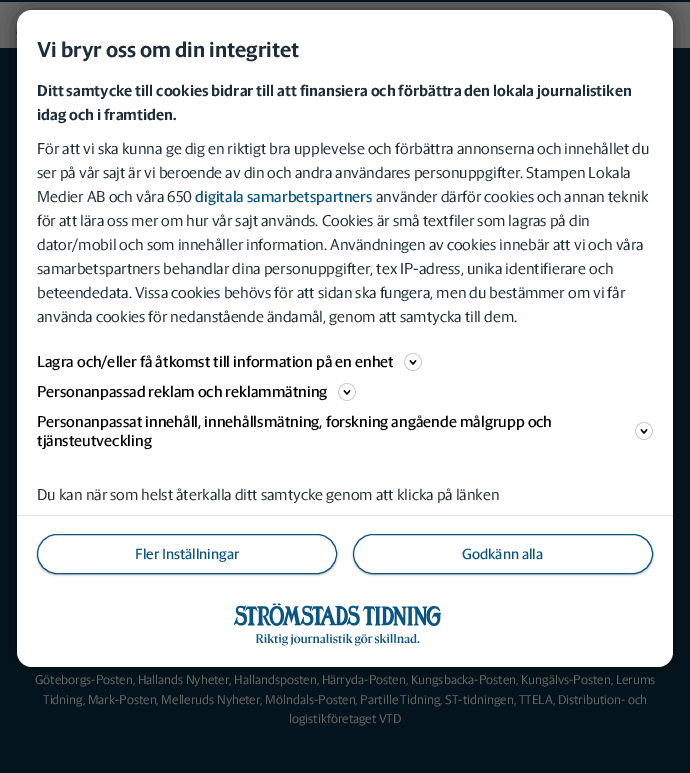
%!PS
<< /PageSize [690 773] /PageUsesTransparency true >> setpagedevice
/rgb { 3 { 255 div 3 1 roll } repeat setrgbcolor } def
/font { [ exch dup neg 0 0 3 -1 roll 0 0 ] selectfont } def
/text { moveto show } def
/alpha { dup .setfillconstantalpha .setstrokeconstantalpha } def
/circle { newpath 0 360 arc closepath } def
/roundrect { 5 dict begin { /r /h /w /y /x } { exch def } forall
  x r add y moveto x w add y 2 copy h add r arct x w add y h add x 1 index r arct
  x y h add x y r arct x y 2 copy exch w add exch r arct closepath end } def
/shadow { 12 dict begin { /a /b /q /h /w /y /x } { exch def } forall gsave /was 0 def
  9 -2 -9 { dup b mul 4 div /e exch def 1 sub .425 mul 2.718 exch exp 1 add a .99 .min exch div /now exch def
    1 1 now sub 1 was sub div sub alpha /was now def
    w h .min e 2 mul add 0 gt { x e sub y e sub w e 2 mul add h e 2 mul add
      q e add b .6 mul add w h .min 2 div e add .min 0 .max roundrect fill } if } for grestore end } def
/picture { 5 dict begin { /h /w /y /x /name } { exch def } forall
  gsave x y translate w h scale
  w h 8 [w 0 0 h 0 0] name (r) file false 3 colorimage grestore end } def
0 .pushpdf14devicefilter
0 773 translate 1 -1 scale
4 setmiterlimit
4 20 30 rgb
0 0 690 773 rectfill
102 102 102 rgb
0 2 690 46 rectfill
(img_02.rgb) 16 17 4 17 picture
0 0 0 rgb
17 10 656 657 15 10 0.5 shadow
255 255 255 rgb
17 10 656 657 15 roundrect fill
0 0 0 rgb
1.3 setlinewidth
410 360.5 moveto 3 3.5 rlineto 3 -3.5 rlineto stroke
196 196 196 rgb
0.6 setlinewidth
413 362 8.5 circle stroke
0 0 0 rgb
1.3 setlinewidth
344 390.5 moveto 3 3.5 rlineto 3 -3.5 rlineto stroke
196 196 196 rgb
0.6 setlinewidth
347 392 8.5 circle stroke
0 0 0 rgb
1.3 setlinewidth
641 429.5 moveto 3 3.5 rlineto 3 -3.5 rlineto stroke
196 196 196 rgb
0.6 setlinewidth
644 431 8.5 circle stroke
230 230 230 rgb
17 515 656 1 rectfill
0 0 0 rgb
37 535 300 40 20 1 0.3 shadow
255 255 255 rgb
37.5 534.5 299 39 19.5 roundrect gsave fill grestore
10 85 130 rgb
1 setlinewidth
stroke
0 0 0 rgb
353 535 300 40 20 1 0.3 shadow
255 255 255 rgb
353.5 534.5 299 39 19.5 roundrect gsave fill grestore
10 85 130 rgb
stroke
(img_01.rgb) 234 603 207 43 picture
/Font-Bold 22 font
30 45 55 rgb
(Vi bryr oss om din integritet) 37 57 text
/Font-Bold 16 font
(Ditt samtycke till cookies bidrar till att finansiera och förbättra den lokala journalistiken) 37 96 text
(idag och i framtiden.) 37 120 text
/Font-Light 16 font
(För att vi ska kunna ge dig en riktigt bra upplevelse och förbättra annonserna och innehållet du) 37 154 text
(ser på vår sajt är vi beroende av din och andra användares personuppgifter. Stampen Lokala) 37 178 text
(Medier AB och våra 650) 37 202 text
/Font-Medium 16 font
10 85 130 rgb
(digitala samarbetspartners) 195 202 text
/Font-Light 16 font
30 45 55 rgb
(använder därför cookies och annan teknik) 376 202 text
(för att lära oss mer om hur vår sajt används. Cookies är små textfiler som lagras på din) 37 226 text
(dator/mobil och som innehåller information. Användningen av cookies innebär att vi och våra) 37 250 text
(samarbetspartners behandlar dina personuppgifter, tex IP-adress, unika identifierare och) 37 274 text
(beteendedata. Vissa cookies behövs för att sidan ska fungera, men du bestämmer om vi får) 37 298 text
(använda cookies för nedanstående ändamål, genom att samtycka till dem.) 37 322 text
/Font-Medium 16 font
0 0 0 rgb
(Lagra och/eller få åtkomst till information på en enhet) 37 367 text
(Personanpassad reklam och reklammätning) 37 397 text
(Personanpassat innehåll, innehållsmätning, forskning angående målgrupp och) 37 427 text
(tjänsteutveckling) 37 446 text
/Font-Light 16 font
30 45 55 rgb
(Du kan när som helst återkalla ditt samtycke genom att klicka på länken) 37 500 text
/Font-Medium 15 font
10 85 130 rgb
(Fler Inställningar) 135 559 text
(Godkänn alla) 462 559 text
/Font-Light 13 font
102 102 102 rgb
(Göteborgs-Posten, Hallands Nyheter, Hallandsposten, Härryda-Posten, Kungsbacka-Posten, Kungälvs-Posten, Lerums) 35 684 text
(Tidning, Mark-Posten, Melleruds Nyheter, Mölndals-Posten, Partille Tidning, ST-tidningen, TTELA, Distribution- och) 43 704 text
(logistikföretaget VTD) 289 723 text
.poppdf14devicefilter showpage
